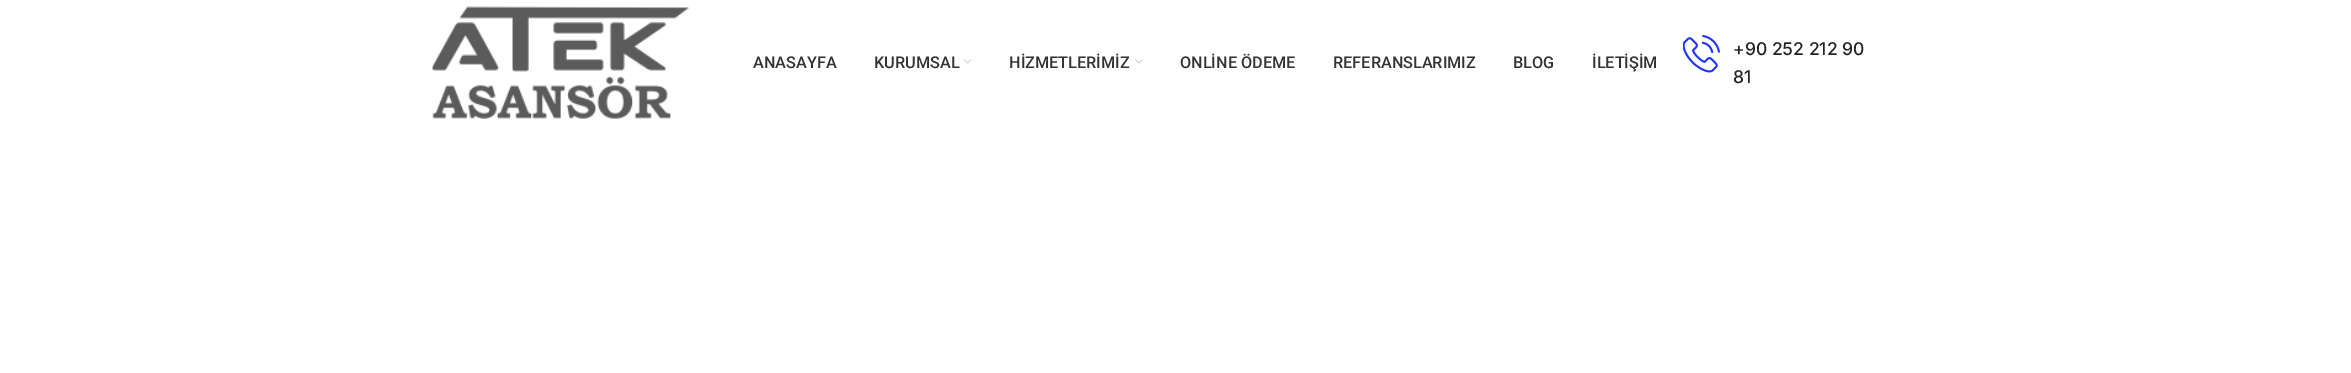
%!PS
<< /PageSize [2351 373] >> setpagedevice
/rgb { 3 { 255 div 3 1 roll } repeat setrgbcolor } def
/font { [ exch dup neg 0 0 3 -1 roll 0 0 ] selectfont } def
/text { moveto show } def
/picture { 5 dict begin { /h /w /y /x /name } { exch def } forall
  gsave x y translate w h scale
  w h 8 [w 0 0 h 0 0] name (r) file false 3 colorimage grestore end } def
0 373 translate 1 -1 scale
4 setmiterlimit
255 255 255 rgb
0 0 2351 373 rectfill
(img_01.rgb) 432 6 257 113 picture
(img_02.rgb) 964 59 8 5 picture
(img_03.rgb) 1135 59 8 5 picture
(img_04.rgb) 1683 35 37 38 picture
/Roboto-Medium 16.25 font
51 51 51 rgb
(ANASAYFA) 753 68 text
(KURUMSAL) 874 68 text
(HİZMETLERİMİZ) 1009 68 text
(ONLİNE ÖDEME) 1180 68 text
(REFERANSLARIMIZ) 1333 68 text
(BLOG) 1513 68 text
(İLETİŞİM) 1592 68 text
/Inter-Medium 17.5 font
36 36 36 rgb
(+90 252 212 90) 1733 55 text
(81) 1733 83 text
showpage
